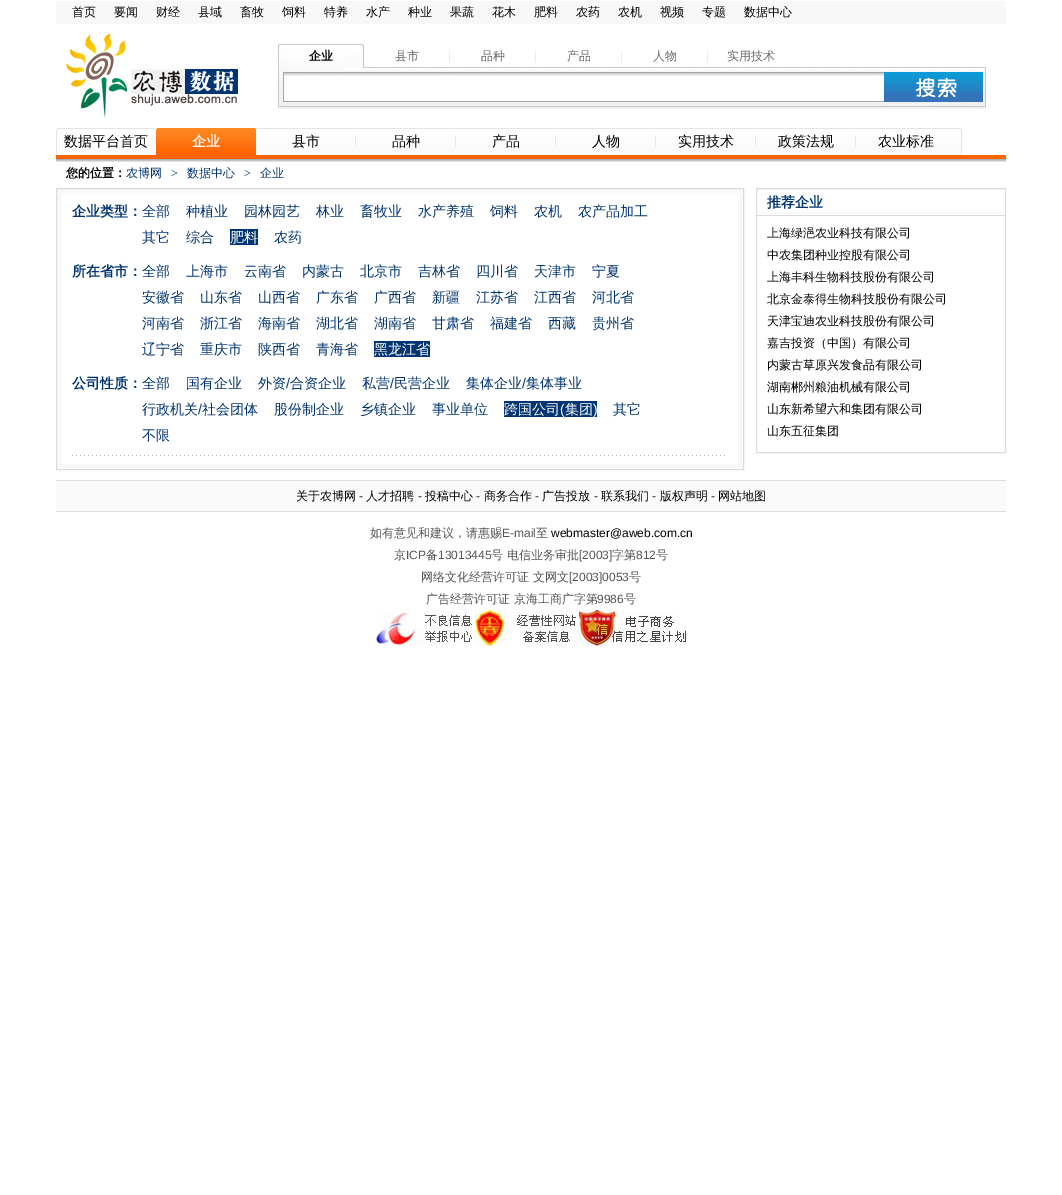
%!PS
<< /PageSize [1062 1195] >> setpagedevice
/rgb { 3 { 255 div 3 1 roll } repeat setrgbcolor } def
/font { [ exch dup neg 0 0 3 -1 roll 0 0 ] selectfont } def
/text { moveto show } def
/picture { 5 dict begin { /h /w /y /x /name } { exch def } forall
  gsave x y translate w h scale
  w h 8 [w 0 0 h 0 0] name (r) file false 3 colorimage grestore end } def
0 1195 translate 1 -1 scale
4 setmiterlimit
255 255 255 rgb
0 0 1062 1195 rectfill
248 248 248 rgb
56 1 950 23 rectfill
(img_01.rgb) 66 34 172 84 picture
(img_02.rgb) 364 67 622 1 picture
(img_03.rgb) 278 44 83 24 picture
(img_04.rgb) 361 44 3 24 picture
(img_05.rgb) 449 50 1 13 picture
(img_05.rgb) 535 50 1 13 picture
(img_06.rgb) 621 50 1 18 picture
(img_05.rgb) 707 50 1 13 picture
(img_07.rgb) 278 68 708 42 picture
(img_08.rgb) 884 72 99 30 picture
(img_09.rgb) 56 155 950 7 picture
(img_10.rgb) 56 128 900 27 picture
(img_11.rgb) 156 128 95 27 picture
(img_12.rgb) 251 128 5 27 picture
(img_13.rgb) 355 134 1 13 picture
(img_13.rgb) 455 134 1 13 picture
(img_13.rgb) 555 134 1 13 picture
(img_13.rgb) 655 134 1 13 picture
(img_13.rgb) 755 134 1 13 picture
(img_13.rgb) 855 134 1 13 picture
(img_14.rgb) 956 128 6 27 picture
249 249 249 rgb
56.5 188.5 moveto 687 0 rlineto 0 281 rlineto -687 0 rlineto closepath gsave fill grestore
220 220 220 rgb
stroke
255 255 255 rgb
62 194 676 270 rectfill
(img_15.rgb) 72 455 653 1 picture
1 53 114 rgb
230 229 28 16 rectfill
374 341 56 16 rectfill
504 401 93 16 rectfill
220 220 220 rgb
756.5 188.5 249 264 rectstroke
250 250 250 rgb
757 212 248 2 rectfill
220 220 220 rgb
757 215 248 1 rectfill
250 250 250 rgb
56 481 950 30 rectfill
221 221 221 rgb
56 480 950 1 rectfill
56 511 950 1 rectfill
(img_16.rgb) 376 610 96 36 picture
(img_17.rgb) 475 610 101 36 picture
(img_18.rgb) 579 610 107 36 picture
/WenQuanYiZenHei-Medium 12 font
0 0 0 rgb
(首页) 72 16 text
(要闻) 114 16 text
(财经) 156 16 text
(县域) 198 16 text
(畜牧) 240 16 text
(饲料) 282 16 text
(特养) 324 16 text
(水产) 366 16 text
(种业) 408 16 text
(果蔬) 450 16 text
(花木) 492 16 text
(肥料) 534 16 text
(农药) 576 16 text
(农机) 618 16 text
(视频) 660 16 text
(专题) 702 16 text
(数据中心) 744 16 text
/WenQuanYiZenHei-Bold 12 font
(企业) 309 60 text
/WenQuanYiZenHei-Medium 12 font
104 104 104 rgb
(县市) 395 60 text
(品种) 481 60 text
(产品) 567 60 text
(人物) 653 60 text
(实用技术) 727 60 text
/WenQuanYiZenHei-Medium 14 font
0 0 0 rgb
(数据平台首页) 64 146 text
/WenQuanYiZenHei-Bold 14 font
255 255 255 rgb
(企业) 192 146 text
/WenQuanYiZenHei-Medium 14 font
0 0 0 rgb
(县市) 292 146 text
(品种) 392 146 text
(产品) 492 146 text
(人物) 592 146 text
(实用技术) 678 146 text
(政策法规) 778 146 text
(农业标准) 878 146 text
/WenQuanYiZenHei-Bold 12 font
(您的位置：) 66 177 text
/WenQuanYiZenHei-Medium 12 font
1 53 114 rgb
(农博网) 126 177 text
/LiberationSerif-Regular 12 font
(>) 171 177 text
/WenQuanYiZenHei-Medium 12 font
(数据中心) 187 177 text
/LiberationSerif-Regular 12 font
(>) 244 177 text
/WenQuanYiZenHei-Medium 12 font
(企业) 260 177 text
/WenQuanYiZenHei-Bold 14 font
(企业类型：) 72 216 text
/WenQuanYiZenHei-Medium 14 font
(全部) 142 216 text
(种植业) 186 216 text
(园林园艺) 244 216 text
(林业) 316 216 text
(畜牧业) 360 216 text
(水产养殖) 418 216 text
(饲料) 490 216 text
(农机) 534 216 text
(农产品加工) 578 216 text
(其它) 142 242 text
(综合) 186 242 text
255 255 255 rgb
(肥料) 230 242 text
1 53 114 rgb
(农药) 274 242 text
/WenQuanYiZenHei-Bold 14 font
(所在省市：) 72 276 text
/WenQuanYiZenHei-Medium 14 font
(全部) 142 276 text
(上海市) 186 276 text
(云南省) 244 276 text
(内蒙古) 302 276 text
(北京市) 360 276 text
(吉林省) 418 276 text
(四川省) 476 276 text
(天津市) 534 276 text
(宁夏) 592 276 text
(安徽省) 142 302 text
(山东省) 200 302 text
(山西省) 258 302 text
(广东省) 316 302 text
(广西省) 374 302 text
(新疆) 432 302 text
(江苏省) 476 302 text
(江西省) 534 302 text
(河北省) 592 302 text
(河南省) 142 328 text
(浙江省) 200 328 text
(海南省) 258 328 text
(湖北省) 316 328 text
(湖南省) 374 328 text
(甘肃省) 432 328 text
(福建省) 490 328 text
(西藏) 548 328 text
(贵州省) 592 328 text
(辽宁省) 142 354 text
(重庆市) 200 354 text
(陕西省) 258 354 text
(青海省) 316 354 text
255 255 255 rgb
(黑龙江省) 374 354 text
/WenQuanYiZenHei-Bold 14 font
1 53 114 rgb
(公司性质：) 72 388 text
/WenQuanYiZenHei-Medium 14 font
(全部) 142 388 text
(国有企业) 186 388 text
(外资) 258 388 text
/LiberationSans-Regular 14 font
(/) 286 388 text
/WenQuanYiZenHei-Medium 14 font
(合资企业) 290 388 text
(私营) 362 388 text
/LiberationSans-Regular 14 font
(/) 390 388 text
/WenQuanYiZenHei-Medium 14 font
(民营企业) 394 388 text
(集体企业) 466 388 text
/LiberationSans-Regular 14 font
(/) 522 388 text
/WenQuanYiZenHei-Medium 14 font
(集体事业) 526 388 text
(行政机关) 142 414 text
/LiberationSans-Regular 14 font
(/) 198 414 text
/WenQuanYiZenHei-Medium 14 font
(社会团体) 202 414 text
(股份制企业) 274 414 text
(乡镇企业) 360 414 text
(事业单位) 432 414 text
255 255 255 rgb
(跨国公司) 504 414 text
/LiberationSans-Regular 14 font
(\() 560 414 text
/WenQuanYiZenHei-Medium 14 font
(集团) 565 414 text
/LiberationSans-Regular 14 font
(\)) 593 414 text
/WenQuanYiZenHei-Medium 14 font
1 53 114 rgb
(其它) 613 414 text
(不限) 142 440 text
/WenQuanYiZenHei-Bold 14 font
(推荐企业) 767 207 text
/WenQuanYiZenHei-Medium 12 font
0 0 0 rgb
(上海绿浥农业科技有限公司) 767 237 text
(中农集团种业控股有限公司) 767 259 text
(上海丰科生物科技股份有限公司) 767 281 text
(北京金泰得生物科技股份有限公司) 767 303 text
(天津宝迪农业科技股份有限公司) 767 325 text
(嘉吉投资（中国）有限公司) 767 347 text
(内蒙古草原兴发食品有限公司) 767 369 text
(湖南郴州粮油机械有限公司) 767 391 text
(山东新希望六和集团有限公司) 767 413 text
(山东五征集团) 767 435 text
(关于农博网) 296 500 text
/LiberationSans-Regular 12 font
51 51 51 rgb
(-) 359 500 text
/WenQuanYiZenHei-Medium 12 font
0 0 0 rgb
(人才招聘) 366 500 text
/LiberationSans-Regular 12 font
51 51 51 rgb
(-) 418 500 text
/WenQuanYiZenHei-Medium 12 font
0 0 0 rgb
(投稿中心) 425 500 text
/LiberationSans-Regular 12 font
51 51 51 rgb
(-) 476 500 text
/WenQuanYiZenHei-Medium 12 font
0 0 0 rgb
(商务合作) 484 500 text
/LiberationSans-Regular 12 font
51 51 51 rgb
(-) 535 500 text
/WenQuanYiZenHei-Medium 12 font
0 0 0 rgb
(广告投放) 542 500 text
/LiberationSans-Regular 12 font
51 51 51 rgb
(-) 594 500 text
/WenQuanYiZenHei-Medium 12 font
0 0 0 rgb
(联系我们) 601 500 text
/LiberationSans-Regular 12 font
51 51 51 rgb
(-) 652 500 text
/WenQuanYiZenHei-Medium 12 font
0 0 0 rgb
(版权声明) 660 500 text
/LiberationSans-Regular 12 font
51 51 51 rgb
(-) 711 500 text
/WenQuanYiZenHei-Medium 12 font
0 0 0 rgb
(网站地图) 718 500 text
85 85 85 rgb
(如有意见和建议，请惠赐) 370 537 text
/LiberationSans-Regular 12 font
(E-mail) 502 537 text
/WenQuanYiZenHei-Medium 12 font
(至) 536 537 text
/LiberationSans-Regular 12 font
0 0 0 rgb
(webmaster@aweb.com.cn) 551 537 text
/WenQuanYiZenHei-Medium 12 font
85 85 85 rgb
(京) 394 559 text
/LiberationSans-Regular 12 font
(ICP) 406 559 text
/WenQuanYiZenHei-Medium 12 font
(备) 426 559 text
/LiberationSans-Regular 12 font
(13013445) 438 559 text
/WenQuanYiZenHei-Medium 12 font
(号 电信业务审批) 491 559 text
/LiberationSans-Regular 12 font
([2003]) 579 559 text
/WenQuanYiZenHei-Medium 12 font
(字第) 612 559 text
/LiberationSans-Regular 12 font
(812) 636 559 text
/WenQuanYiZenHei-Medium 12 font
(号) 656 559 text
(网络文化经营许可证 文网文) 421 581 text
/LiberationSans-Regular 12 font
([2003]0053) 569 581 text
/WenQuanYiZenHei-Medium 12 font
(号) 629 581 text
(广告经营许可证 京海工商广字第) 426 603 text
/LiberationSans-Regular 12 font
(9986) 597 603 text
/WenQuanYiZenHei-Medium 12 font
(号) 624 603 text
showpage
